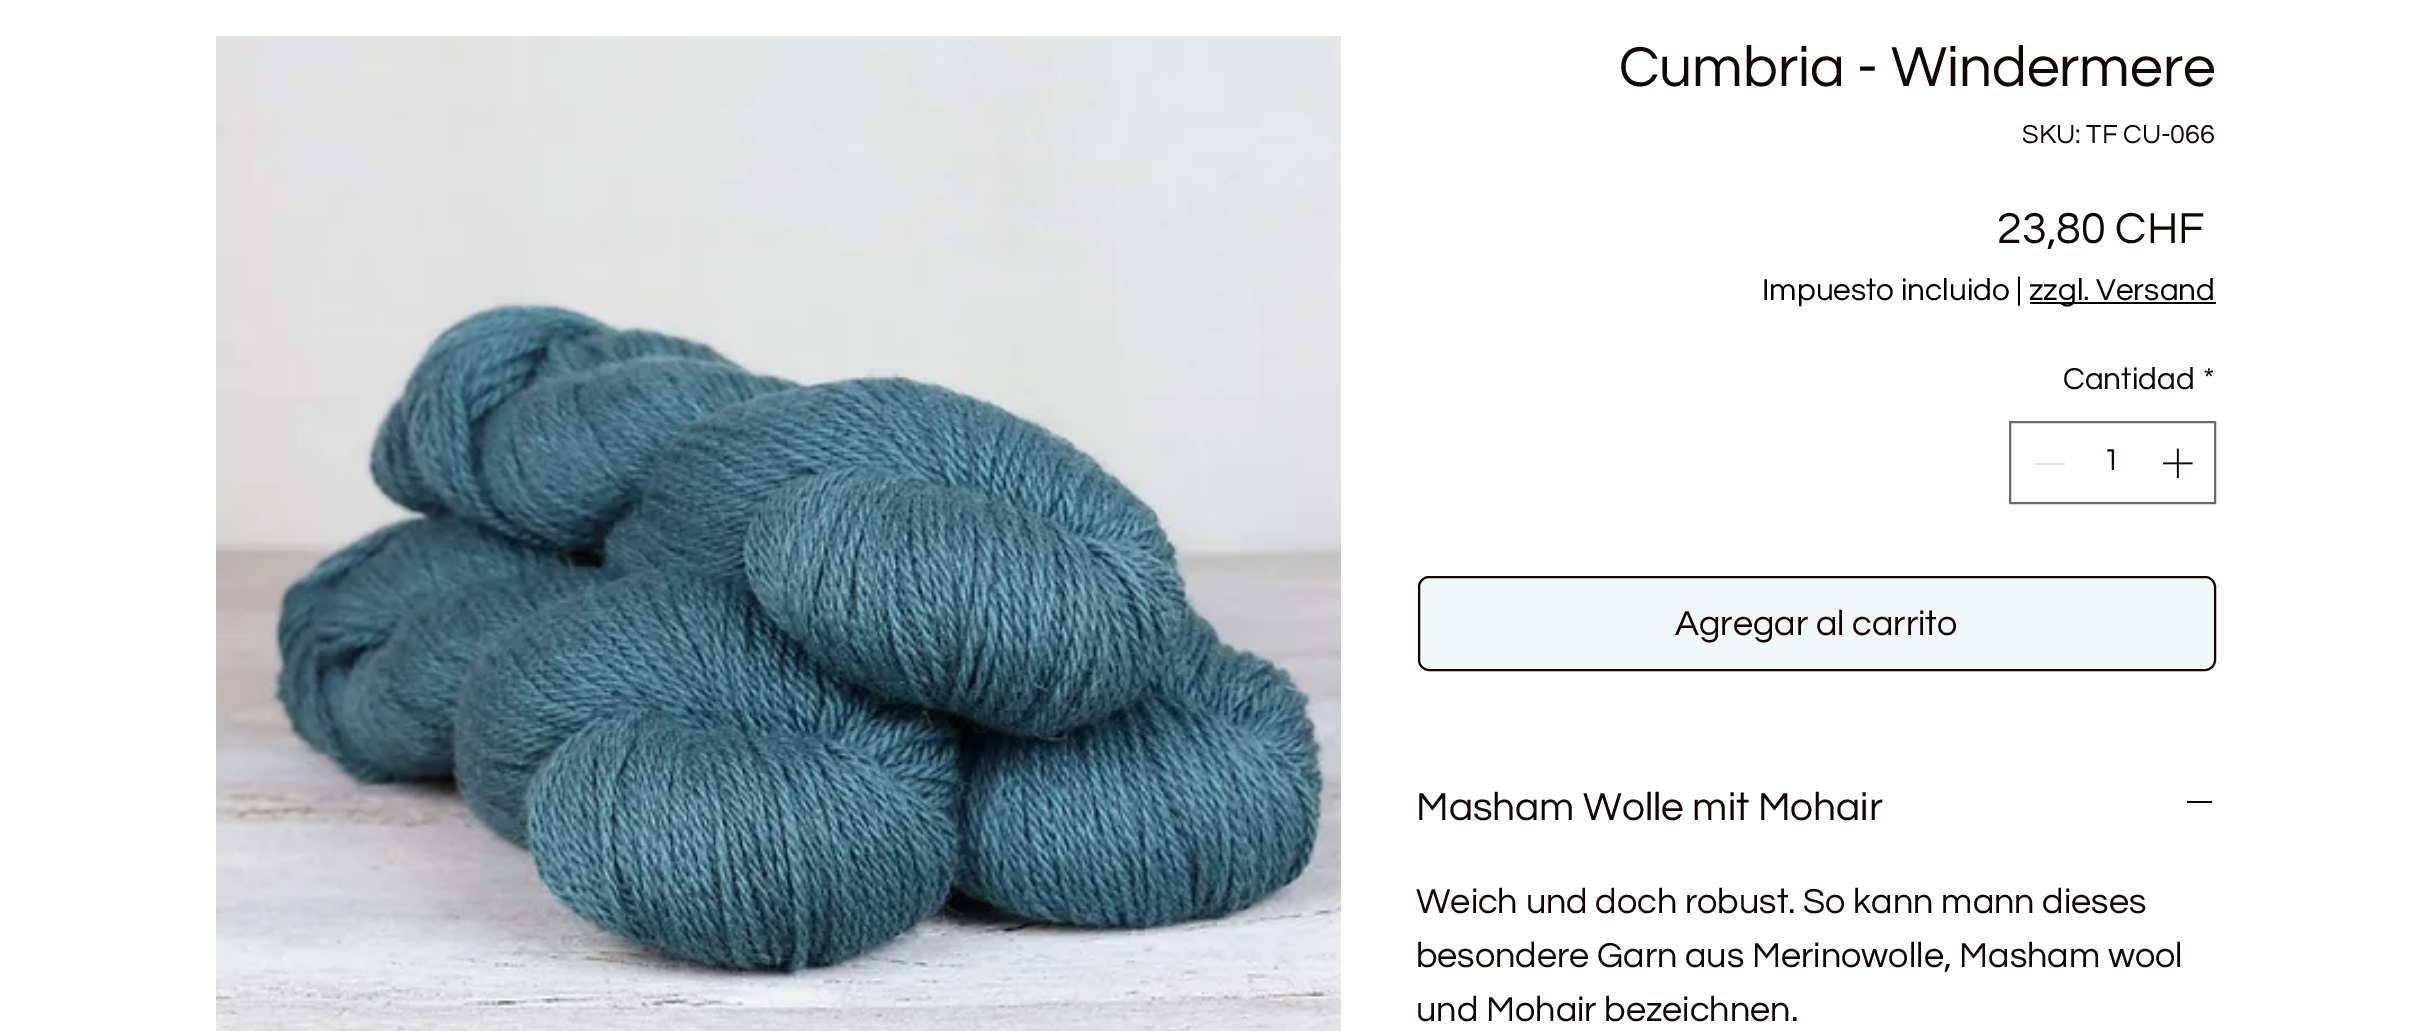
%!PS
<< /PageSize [2426 1031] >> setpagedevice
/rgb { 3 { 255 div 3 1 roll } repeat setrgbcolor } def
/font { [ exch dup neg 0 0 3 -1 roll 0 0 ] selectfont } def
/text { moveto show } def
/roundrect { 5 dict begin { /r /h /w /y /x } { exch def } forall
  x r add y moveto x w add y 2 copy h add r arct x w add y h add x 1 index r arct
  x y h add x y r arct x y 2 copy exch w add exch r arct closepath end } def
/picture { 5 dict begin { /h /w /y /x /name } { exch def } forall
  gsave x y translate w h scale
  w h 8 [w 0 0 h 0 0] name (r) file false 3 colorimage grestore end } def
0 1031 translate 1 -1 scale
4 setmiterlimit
255 255 255 rgb
0 0 2426 1031 rectfill
(img_01.rgb) 216 36 1125 995 picture
0 0 0 rgb
2030 302 186 2 rectfill
115 104 104 rgb
2 setlinewidth
2010 422 205 81 rectstroke
227 227 227 rgb
2035 463 30 2 rectfill
(img_02.rgb) 2163 448 30 31 picture
239 247 248 rgb
1419 577 796 93 10 roundrect gsave fill grestore
22 3 3 rgb
stroke
2187 801 25 2 rectfill
/Questrial-Regular 58.5 font
(Cumbria - Windermere) 1619 86 text
/Questrial-Regular 27 font
(SKU: TF CU-066) 2022 143 text
/Questrial-Regular 45 font
(23,80 CHF) 1997 243 text
/Questrial-Regular 31.5 font
0 0 0 rgb
(Impuesto incluido |) 1762 300 text
(zzgl. Versand) 2029 300 text
22 3 3 rgb
(Cantidad) 2063 389 text
(*) 2203 389 text
(1) 2103 470 text
/Questrial-Regular 36 font
(Agregar al carrito) 1675 635 text
/Questrial-Regular 40.5 font
(Masham Wolle mit Mohair) 1416 820 text
/Questrial-Regular 36 font
(Weich und doch robust. So kann mann dieses) 1416 913 text
(besondere Garn aus Merinowolle, Masham wool) 1416 967 text
(und Mohair bezeichnen.) 1416 1021 text
showpage
